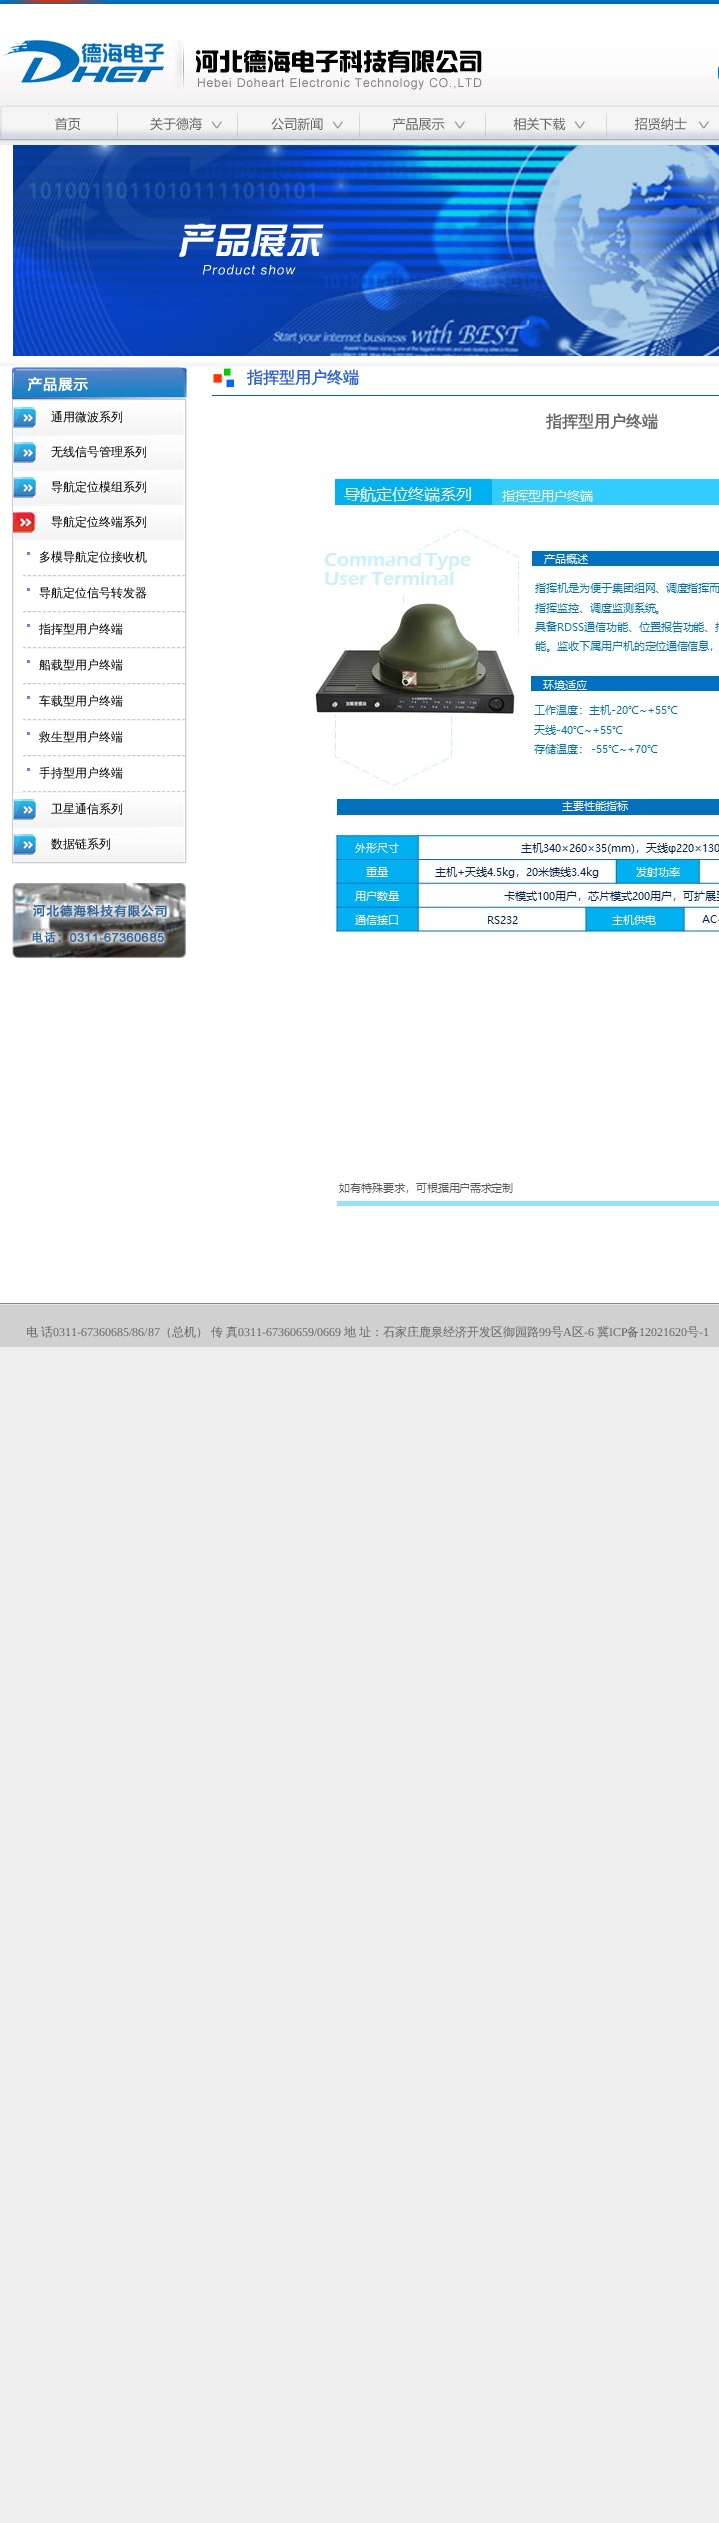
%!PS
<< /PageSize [719 2523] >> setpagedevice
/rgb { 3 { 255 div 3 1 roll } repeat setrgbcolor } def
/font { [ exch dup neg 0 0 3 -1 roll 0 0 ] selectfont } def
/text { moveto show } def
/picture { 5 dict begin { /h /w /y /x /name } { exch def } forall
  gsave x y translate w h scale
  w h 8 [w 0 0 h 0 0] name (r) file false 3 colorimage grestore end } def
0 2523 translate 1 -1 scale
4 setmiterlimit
238 238 238 rgb
0 0 719 2523 rectfill
2 110 183 rgb
0 0 719 3 rectfill
(img_01.rgb) 5 0 99 3 picture
(img_02.rgb) 0 3 719 139 picture
(img_03.rgb) 0 40 488 56 picture
(img_04.rgb) 718 66 1 14 picture
(img_05.rgb) 0 105 117 35 picture
(img_06.rgb) 117 105 1 35 picture
(img_07.rgb) 118 105 119 35 picture
(img_06.rgb) 237 105 1 35 picture
(img_08.rgb) 238 105 121 35 picture
(img_06.rgb) 359 105 1 35 picture
(img_09.rgb) 360 105 125 35 picture
(img_06.rgb) 485 105 1 35 picture
(img_10.rgb) 486 105 120 35 picture
(img_06.rgb) 606 105 1 35 picture
(img_11.rgb) 607 105 112 35 picture
255 255 255 rgb
0 145 719 1158 rectfill
(img_12.rgb) 13 145 706 211 picture
(img_13.rgb) 0 361 719 6 picture
(img_14.rgb) 212 367 23 21 picture
0 102 153 rgb
212 395 507 1 rectfill
(img_15.rgb) 313 469 406 742 picture
(img_16.rgb) 12 367 175 32 picture
204 204 204 rgb
12.5 399.5 173 463 rectstroke
(img_17.rgb) 13 400 171 35 picture
(img_17.rgb) 13 435 171 35 picture
(img_17.rgb) 13 470 171 35 picture
(img_18.rgb) 13 505 171 35 picture
118 128 200 rgb
27 552 3 3 rectfill
204 204 204 rgb
[3 1.97] 0 setdash
23 575.5 moveto 162 0 rlineto stroke
118 128 200 rgb
27 588 3 3 rectfill
204 204 204 rgb
23 611.5 moveto 162 0 rlineto stroke
118 128 200 rgb
27 624 3 3 rectfill
204 204 204 rgb
23 647.5 moveto 162 0 rlineto stroke
118 128 200 rgb
27 660 3 3 rectfill
204 204 204 rgb
23 683.5 moveto 162 0 rlineto stroke
118 128 200 rgb
27 696 3 3 rectfill
204 204 204 rgb
23 719.5 moveto 162 0 rlineto stroke
118 128 200 rgb
27 732 3 3 rectfill
204 204 204 rgb
23 755.5 moveto 162 0 rlineto stroke
118 128 200 rgb
27 768 3 3 rectfill
204 204 204 rgb
23 791.5 moveto 162 0 rlineto stroke
(img_17.rgb) 13 792 171 35 picture
(img_17.rgb) 13 827 171 35 picture
(img_19.rgb) 12 883 174 75 picture
208 208 208 rgb
0 1305 719 42 rectfill
231 231 231 rgb
0 1304 719 1 rectfill
138 138 138 rgb
0 1303 719 1 rectfill
/WenQuanYiZenHei-Bold 16 font
51 102 204 rgb
(指挥型用户终端) 247 383 text
102 102 102 rgb
(指挥型用户终端) 546 427 text
/WenQuanYiZenHei-Medium 12 font
0 0 0 rgb
(通用微波系列) 51 421 text
(无线信号管理系列) 51 456 text
(导航定位模组系列) 51 491 text
(导航定位终端系列) 51 526 text
(多模导航定位接收机) 39 561 text
(导航定位信号转发器) 39 597 text
(指挥型用户终端) 39 633 text
(船载型用户终端) 39 669 text
(车载型用户终端) 39 705 text
(救生型用户终端) 39 741 text
(手持型用户终端) 39 777 text
(卫星通信系列) 51 813 text
(数据链系列) 51 848 text
102 102 102 rgb
(电) 26 1336 text
(话) 41 1336 text
/LiberationSerif-Regular 12 font
(0311-67360685/86/87) 53 1336 text
/WenQuanYiZenHei-Medium 12 font
(（总机）) 160 1336 text
(传) 211 1336 text
(真) 226 1336 text
/LiberationSerif-Regular 12 font
(0311-67360659/0669) 238 1336 text
/WenQuanYiZenHei-Medium 12 font
(地) 344 1336 text
(址：石家庄鹿泉经济开发区御园路) 359 1336 text
/LiberationSerif-Regular 12 font
(99) 539 1336 text
/WenQuanYiZenHei-Medium 12 font
(号) 551 1336 text
/LiberationSerif-Regular 12 font
(A) 563 1336 text
/WenQuanYiZenHei-Medium 12 font
(区) 572 1336 text
/LiberationSerif-Regular 12 font
(-6) 584 1336 text
/WenQuanYiZenHei-Medium 12 font
(冀) 597 1336 text
/LiberationSerif-Regular 12 font
(ICP) 609 1336 text
/WenQuanYiZenHei-Medium 12 font
(备) 627 1336 text
/LiberationSerif-Regular 12 font
(12021620) 639 1336 text
/WenQuanYiZenHei-Medium 12 font
(号) 687 1336 text
/LiberationSerif-Regular 12 font
(-1) 699 1336 text
showpage
